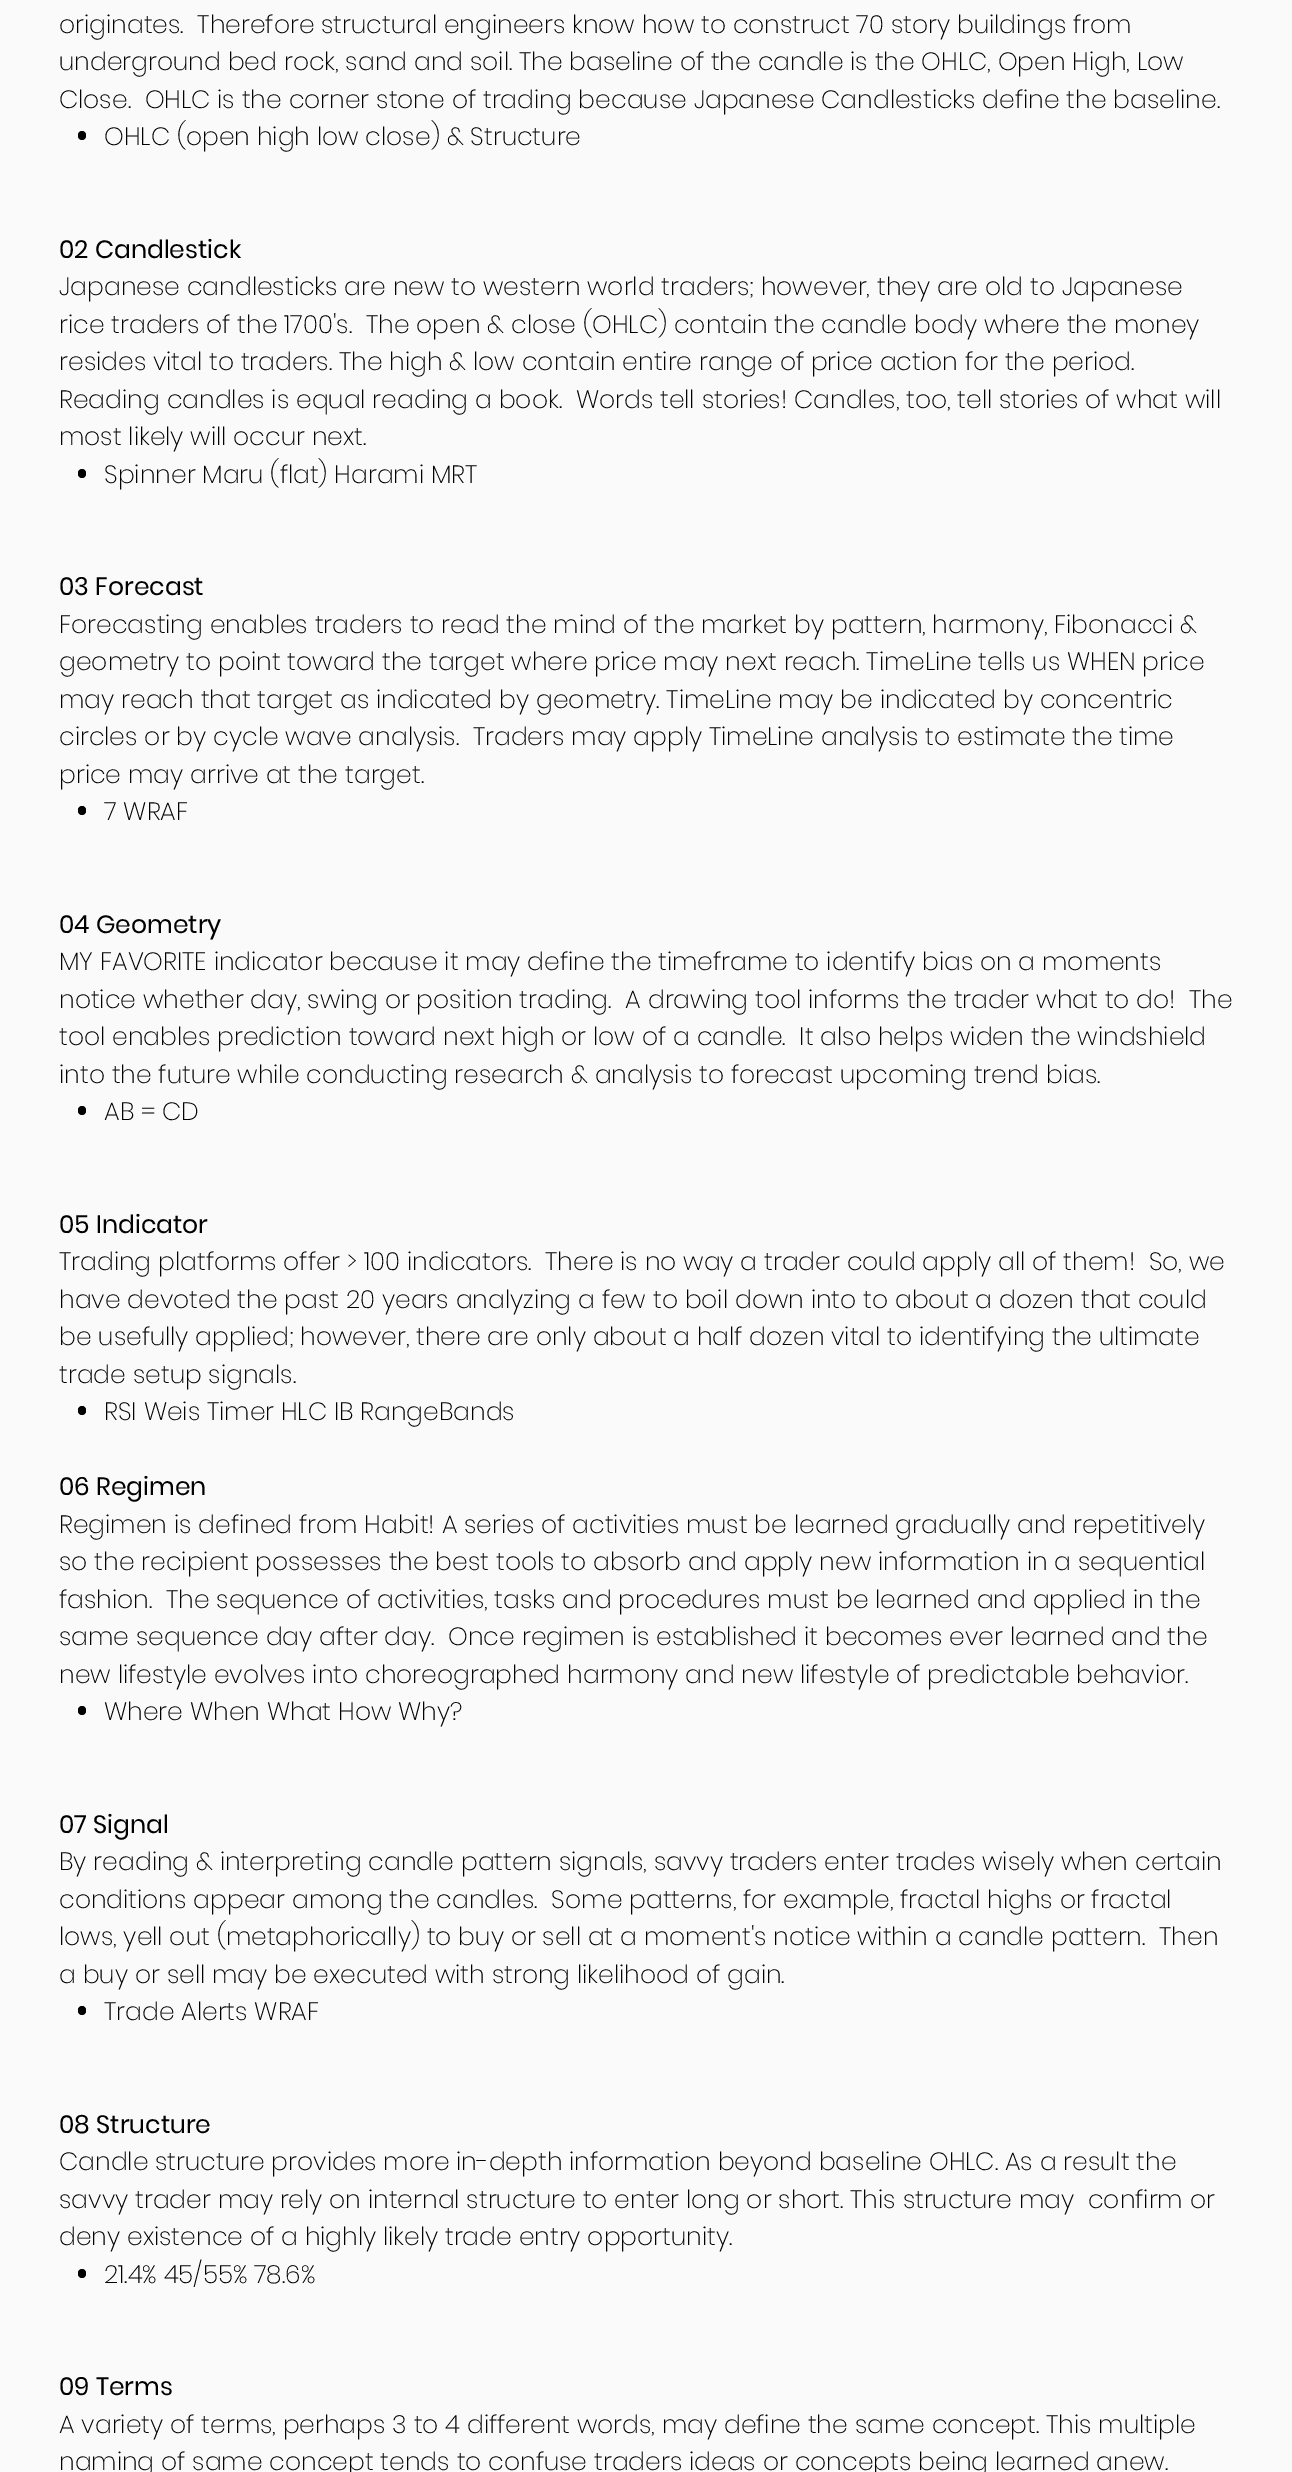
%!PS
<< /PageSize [1292 2472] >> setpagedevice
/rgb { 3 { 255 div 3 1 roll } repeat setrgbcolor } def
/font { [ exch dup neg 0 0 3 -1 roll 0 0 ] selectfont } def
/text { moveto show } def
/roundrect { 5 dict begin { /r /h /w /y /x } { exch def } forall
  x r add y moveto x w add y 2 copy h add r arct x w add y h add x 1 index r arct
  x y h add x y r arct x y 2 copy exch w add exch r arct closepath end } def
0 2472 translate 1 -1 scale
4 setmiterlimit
250 250 250 rgb
0 0 1292 2472 rectfill
0 0 0 rgb
78 131 8 9 4 roundrect fill
78 469 8 9 4 roundrect fill
78 806 8 9 4 roundrect fill
78 1106 8 9 4 roundrect fill
78 1406 8 9 4 roundrect fill
78 1706 8 9 4 roundrect fill
78 2006 8 9 4 roundrect fill
78 2269 8 9 4 roundrect fill
/Poppins-ExtraLight 25 font
(originates.  Therefore structural engineers know how to construct 70 story buildings from) 59 33 text
(underground bed rock, sand and soil. The baseline of the candle is the OHLC, Open High, Low) 59 70 text
(Close.  OHLC is the corner stone of trading because Japanese Candlesticks define the baseline.) 59 108 text
(OHLC \(open high low close\) & Structure) 104 145 text
/Poppins-Regular 25 font
(02 Candlestick) 59 258 text
/Poppins-ExtraLight 25 font
(Japanese candlesticks are new to western world traders; however, they are old to Japanese) 59 295 text
(rice traders of the 1700's.  The open & close \(OHLC\) contain the candle body where the money) 59 333 text
(resides vital to traders. The high & low contain entire range of price action for the period.) 59 370 text
(Reading candles is equal reading a book.  Words tell stories! Candles, too, tell stories of what will) 59 408 text
(most likely will occur next.) 59 445 text
(Spinner Maru \(flat\) Harami MRT) 104 483 text
/Poppins-Regular 25 font
(03 Forecast) 59 595 text
/Poppins-ExtraLight 25 font
(Forecasting enables traders to read the mind of the market by pattern, harmony, Fibonacci &) 59 633 text
(geometry to point toward the target where price may next reach. TimeLine tells us WHEN price) 59 670 text
(may reach that target as indicated by geometry. TimeLine may be indicated by concentric) 59 708 text
(circles or by cycle wave analysis.  Traders may apply TimeLine analysis to estimate the time) 59 745 text
(price may arrive at the target.) 59 783 text
(7 WRAF) 104 820 text
/Poppins-Regular 25 font
(04 Geometry) 59 933 text
/Poppins-ExtraLight 25 font
(MY FAVORITE indicator because it may define the timeframe to identify bias on a moments) 59 970 text
(notice whether day, swing or position trading.  A drawing tool informs the trader what to do!  The) 59 1008 text
(tool enables prediction toward next high or low of a candle.  It also helps widen the windshield) 59 1045 text
(into the future while conducting research & analysis to forecast upcoming trend bias.) 59 1083 text
(AB = CD) 104 1120 text
/Poppins-Regular 25 font
(05 Indicator) 59 1233 text
/Poppins-ExtraLight 25 font
(Trading platforms offer > 100 indicators.  There is no way a trader could apply all of them!  So, we) 59 1270 text
(have devoted the past 20 years analyzing a few to boil down into to about a dozen that could) 59 1308 text
(be usefully applied; however, there are only about a half dozen vital to identifying the ultimate) 59 1345 text
(trade setup signals.) 59 1383 text
(RSI Weis Timer HLC IB RangeBands) 104 1420 text
/Poppins-Regular 25 font
(06 Regimen) 59 1495 text
/Poppins-ExtraLight 25 font
(Regimen is defined from Habit! A series of activities must be learned gradually and repetitively) 59 1533 text
(so the recipient possesses the best tools to absorb and apply new information in a sequential) 59 1570 text
(fashion.  The sequence of activities, tasks and procedures must be learned and applied in the) 59 1608 text
(same sequence day after day.  Once regimen is established it becomes ever learned and the) 59 1645 text
(new lifestyle evolves into choreographed harmony and new lifestyle of predictable behavior.) 59 1683 text
(Where When What How Why?) 104 1720 text
/Poppins-Regular 25 font
(07 Signal) 59 1833 text
/Poppins-ExtraLight 25 font
(By reading & interpreting candle pattern signals, savvy traders enter trades wisely when certain) 59 1870 text
(conditions appear among the candles.  Some patterns, for example, fractal highs or fractal) 59 1908 text
(lows, yell out \(metaphorically\) to buy or sell at a moment's notice within a candle pattern.  Then) 59 1945 text
(a buy or sell may be executed with strong likelihood of gain.) 59 1983 text
(Trade Alerts WRAF) 104 2020 text
/Poppins-Regular 25 font
(08 Structure) 59 2133 text
/Poppins-ExtraLight 25 font
(Candle structure provides more in-depth information beyond baseline OHLC. As a result the) 59 2170 text
(savvy trader may rely on internal structure to enter long or short. This structure may  confirm or) 59 2208 text
(deny existence of a highly likely trade entry opportunity.) 59 2245 text
(21.4% 45/55% 78.6%) 104 2283 text
/Poppins-Regular 25 font
(09 Terms) 59 2395 text
/Poppins-ExtraLight 25 font
(A variety of terms, perhaps 3 to 4 different words, may define the same concept. This multiple) 59 2433 text
(naming of same concept tends to confuse traders ideas or concepts being learned anew.) 59 2470 text
showpage
